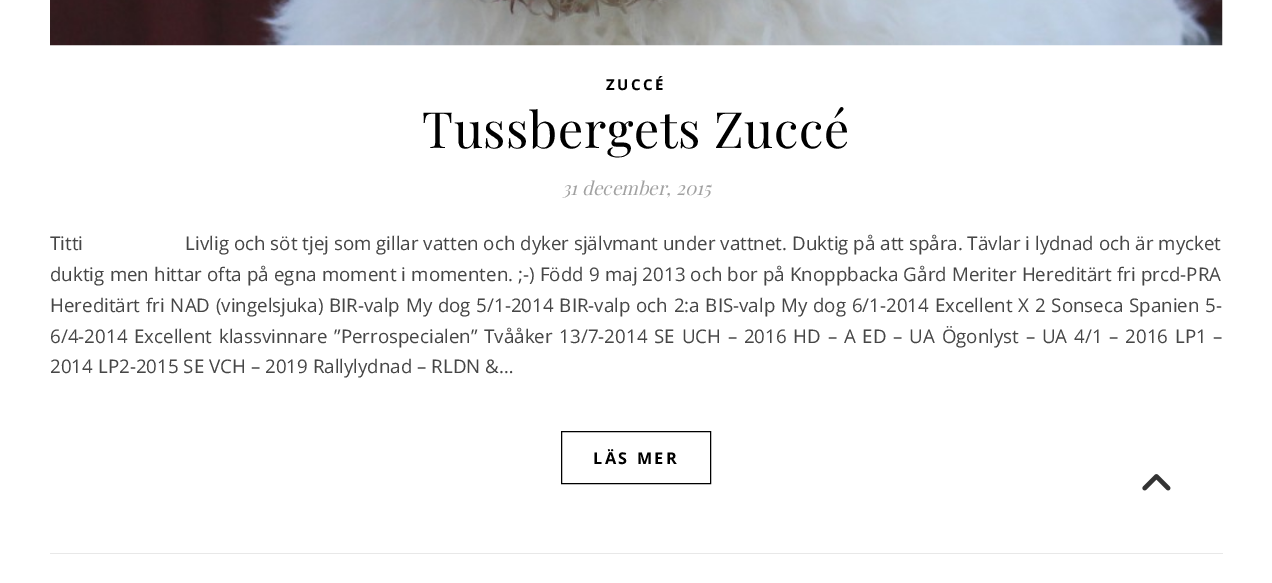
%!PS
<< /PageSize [1272 583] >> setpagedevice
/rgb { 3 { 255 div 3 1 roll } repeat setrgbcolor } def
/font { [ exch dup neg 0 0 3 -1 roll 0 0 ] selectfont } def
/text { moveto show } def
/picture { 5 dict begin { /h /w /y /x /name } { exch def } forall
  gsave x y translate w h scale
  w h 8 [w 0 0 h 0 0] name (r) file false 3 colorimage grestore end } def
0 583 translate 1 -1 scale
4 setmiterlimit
255 255 255 rgb
0 0 1272 583 rectfill
(img_01.rgb) 50 0 1173 46 picture
0 0 0 rgb
561.5 431.5 149 52 rectstroke
232 232 232 rgb
50 553 1173 1 rectfill
(img_02.rgb) 1142 474 29 17 picture
/OpenSans-Bold 15 font
0 0 0 rgb
606 90 moveto 2.5 0 (ZUCCÉ) ashow
/PlayfairDisplay-Regular 50 font
422 148 moveto 0.6 0 (Tussbergets Zuccé) ashow
/PlayfairDisplay-Italic 18.75 font
161 161 161 rgb
(31 december, 2015) 562 195 text
/OpenSans-Regular 18.75 font
70 70 70 rgb
(Titti                     Livlig och söt tjej som gillar vatten och dyker självmant under vattnet. Duktig på att spåra. Tävlar i lydnad och är mycket) 50 250 text
50 281 moveto 0.3 0 32 (duktig men hittar ofta på egna moment i momenten. ;-\) Född 9 maj 2013 och bor på Knoppbacka Gård Meriter Hereditärt fri prcd-PRA) widthshow
50 312 moveto 0.9 0 32 (Hereditärt fri NAD \(vingelsjuka\) BIR-valp My dog 5/1-2014 BIR-valp och 2:a BIS-valp My dog 6/1-2014 Excellent X 2 Sonseca Spanien 5-) widthshow
50 343 moveto 1.9 0 32 (6/4-2014 Excellent klassvinnare ”Perrospecialen” Tvååker 13/7-2014 SE UCH – 2016 HD – A ED – UA Ögonlyst – UA 4/1 – 2016 LP1 –) widthshow
(2014 LP2-2015 SE VCH – 2019 Rallylydnad – RLDN &…) 50 373 text
/OpenSans-Bold 16.25 font
0 0 0 rgb
593 464 moveto 2.5 0 (LÄS MER) ashow
showpage
